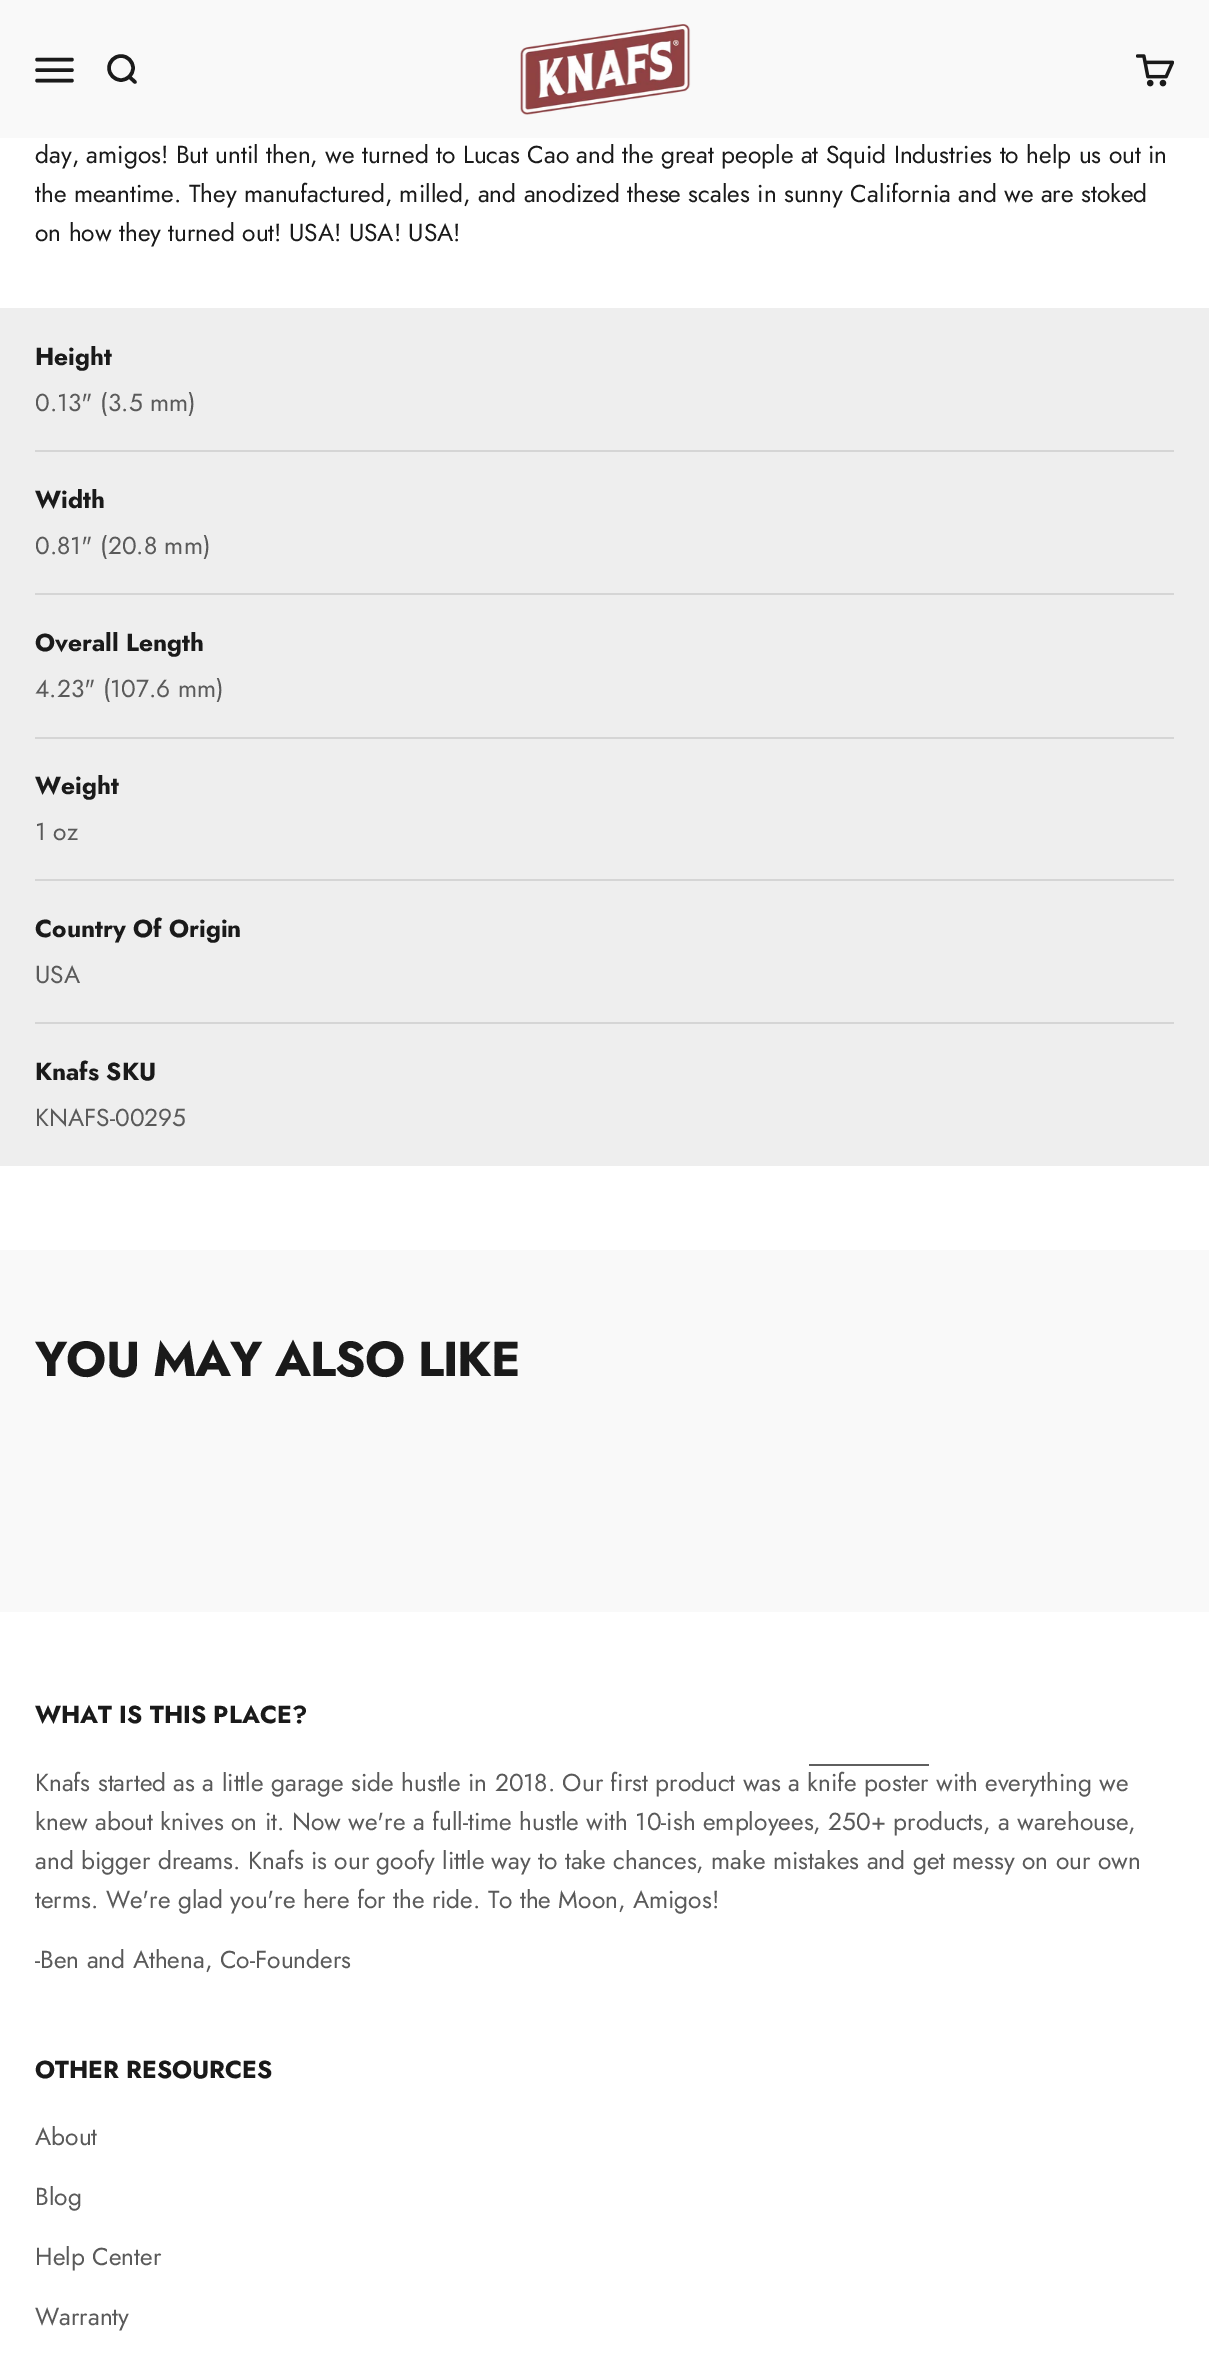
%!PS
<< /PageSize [1209 2367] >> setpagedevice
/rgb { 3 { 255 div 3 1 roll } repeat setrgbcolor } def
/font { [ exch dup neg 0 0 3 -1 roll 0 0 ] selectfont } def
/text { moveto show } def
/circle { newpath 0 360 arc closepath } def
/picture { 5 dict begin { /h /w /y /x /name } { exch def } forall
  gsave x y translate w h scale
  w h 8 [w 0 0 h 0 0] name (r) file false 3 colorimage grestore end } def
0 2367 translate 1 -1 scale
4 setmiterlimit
249 249 249 rgb
0 0 1209 2367 rectfill
26 26 26 rgb
3.5 setlinewidth
1 setlinecap
37 59.5 moveto 35 0 rlineto 37 70 moveto 35 0 rlineto 37 80.5 moveto 35 0 rlineto stroke
0 setlinecap
121 68 12 circle stroke
1 setlinecap
1 setlinejoin
129.5 77 moveto 5.5 5 rlineto stroke
(img_01.rgb) 520 24 171 91 picture
(img_02.rgb) 1136 54 38 33 picture
255 255 255 rgb
0 138 1209 1112 rectfill
238 238 238 rgb
0 308 1209 858 rectfill
213 213 213 rgb
35 450 1139 2 rectfill
35 593 1139 2 rectfill
35 737 1139 2 rectfill
35 879 1139 2 rectfill
35 1022 1139 2 rectfill
255 255 255 rgb
0 1612 1209 755 rectfill
95 95 95 rgb
809 1764 120 2 rectfill
/Jost-Regular 24.5 font
26 26 26 rgb
(day, amigos! But until then, we turned to Lucas Cao and the great people at Squid Industries to help us out in) 35 163 text
(the meantime. They manufactured, milled, and anodized these scales in sunny California and we are stoked) 35 202 text
(on how they turned out! USA! USA! USA!) 35 241 text
/Jost-Bold 24.5 font
(Height) 35 365 text
/Jost-Regular 24.5 font
90 90 90 rgb
(0.13" \(3.5 mm\)) 35 411 text
/Jost-Bold 24.5 font
26 26 26 rgb
(Width) 35 508 text
/Jost-Regular 24.5 font
90 90 90 rgb
(0.81" \(20.8 mm\)) 35 554 text
/Jost-Bold 24.5 font
26 26 26 rgb
(Overall Length) 35 651 text
/Jost-Regular 24.5 font
90 90 90 rgb
(4.23" \(107.6 mm\)) 35 697 text
/Jost-Bold 24.5 font
26 26 26 rgb
(Weight) 35 794 text
/Jost-Regular 24.5 font
90 90 90 rgb
(1 oz) 35 840 text
/Jost-Bold 24.5 font
26 26 26 rgb
(Country Of Origin) 35 937 text
/Jost-Regular 24.5 font
90 90 90 rgb
(USA) 35 983 text
/Jost-Bold 24.5 font
26 26 26 rgb
(Knafs SKU) 35 1080 text
/Jost-Regular 24.5 font
90 90 90 rgb
(KNAFS-00295) 35 1126 text
/Jost-Bold 49 font
26 26 26 rgb
35 1376 moveto -1 0 (YOU MAY ALSO LIKE) ashow
/Jost-Bold 24.5 font
(WHAT IS THIS PLACE?) 35 1723 text
/Jost-Regular 24.5 font
90 90 90 rgb
(Knafs started as a little garage side hustle in 2018. Our first product was a knife poster with everything we) 35 1791 text
(knew about knives on it. Now we're a full-time hustle with 10-ish employees, 250+ products, a warehouse,) 35 1830 text
(and bigger dreams. Knafs is our goofy little way to take chances, make mistakes and get messy on our own) 35 1869 text
(terms. We're glad you're here for the ride. To the Moon, Amigos!) 35 1908 text
(-Ben and Athena, Co-Founders) 35 1968 text
/Jost-Bold 24.5 font
26 26 26 rgb
(OTHER RESOURCES) 35 2078 text
/Jost-Regular 24.5 font
90 90 90 rgb
(About) 35 2145 text
(Blog) 35 2205 text
(Help Center) 35 2265 text
(Warranty) 35 2325 text
showpage
